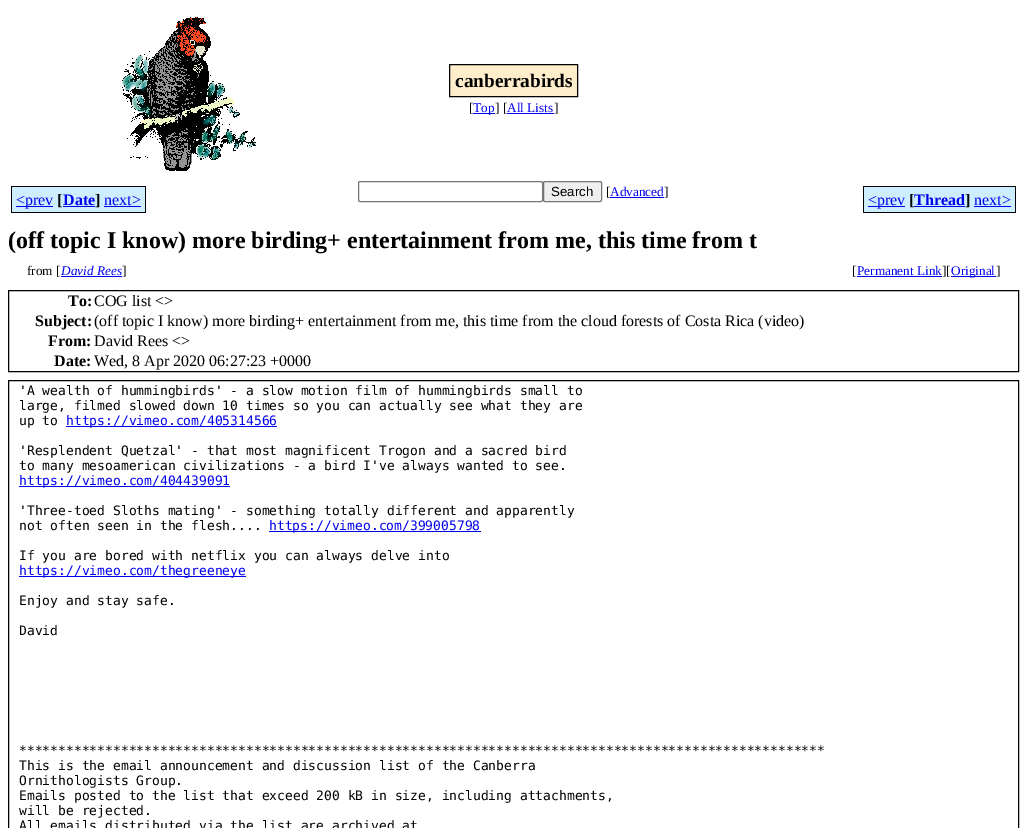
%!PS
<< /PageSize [1027 828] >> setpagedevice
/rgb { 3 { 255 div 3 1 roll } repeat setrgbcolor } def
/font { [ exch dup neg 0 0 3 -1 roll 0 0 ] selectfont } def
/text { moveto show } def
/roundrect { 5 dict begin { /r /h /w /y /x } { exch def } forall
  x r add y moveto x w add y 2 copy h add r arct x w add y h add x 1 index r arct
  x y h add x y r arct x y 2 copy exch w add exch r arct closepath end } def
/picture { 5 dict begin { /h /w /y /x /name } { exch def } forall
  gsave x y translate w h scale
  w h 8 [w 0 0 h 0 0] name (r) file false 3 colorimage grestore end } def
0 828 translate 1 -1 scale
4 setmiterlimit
255 255 255 rgb
0 0 1027 828 rectfill
(img_01.rgb) 122 17 134 154 picture
255 238 204 rgb
449.5 64.5 moveto 128 0 rlineto 0 32 rlineto -128 0 rlineto closepath gsave fill grestore
0 0 0 rgb
stroke
0 0 238 rgb
473 113 22 1 rectfill
507 113 47 1 rectfill
204 238 255 rgb
12 187 41 25 rectfill
0 0 0 rgb
11 186 42 1 rectfill
11 212 42 1 rectfill
11 186 1 27 rectfill
204 238 255 rgb
53 186 10 27 rectfill
0 0 0 rgb
53 212 42 1 rectfill
0 0 238 rgb
16 206 37 1 rectfill
204 238 255 rgb
63 187 32 25 rectfill
0 0 238 rgb
63 206 32 1 rectfill
0 0 0 rgb
53 186 42 1 rectfill
204 238 255 rgb
95 186 9 27 rectfill
0 0 0 rgb
95 186 51 1 rectfill
95 212 9 1 rectfill
204 238 255 rgb
104 187 41 25 rectfill
0 0 0 rgb
145 186 1 27 rectfill
104 212 42 1 rectfill
0 0 238 rgb
104 206 37 1 rectfill
118 118 118 rgb
358.5 181.5 184 20 1.5 roundrect stroke
239 239 239 rgb
543.5 181.5 58 20 1.5 roundrect gsave fill grestore
118 118 118 rgb
stroke
0 0 238 rgb
610 197 54 1 rectfill
204 238 255 rgb
864 187 41 25 rectfill
0 0 0 rgb
863 186 42 1 rectfill
863 212 42 1 rectfill
863 186 1 27 rectfill
204 238 255 rgb
905 186 9 27 rectfill
0 0 0 rgb
905 212 60 1 rectfill
0 0 238 rgb
868 206 37 1 rectfill
204 238 255 rgb
914 187 51 25 rectfill
0 0 238 rgb
914 206 51 1 rectfill
0 0 0 rgb
905 186 60 1 rectfill
204 238 255 rgb
965 186 9 27 rectfill
0 0 0 rgb
965 186 51 1 rectfill
965 212 9 1 rectfill
204 238 255 rgb
974 187 41 25 rectfill
0 0 0 rgb
1015 186 1 27 rectfill
974 212 42 1 rectfill
0 0 238 rgb
974 206 37 1 rectfill
61 276 61 1 rectfill
857 276 85 1 rectfill
951 276 45 1 rectfill
0 0 0 rgb
8.5 290.5 1010 81 rectstroke
8.5 380.5 1010 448 rectstroke
0 0 238 rgb
66 426 211 1 rectfill
19 486 211 1 rectfill
269 531 212 1 rectfill
19 576 227 1 rectfill
/LiberationSerif-Bold 19.25 font
0 0 0 rgb
(canberrabirds) 455 87 text
/LiberationSerif-Regular 13.25 font
([) 469 112 text
0 0 238 rgb
(Top) 473 112 text
0 0 0 rgb
(] [) 495 112 text
0 0 238 rgb
(All Lists) 507 112 text
0 0 0 rgb
(]) 554 112 text
/LiberationSerif-Regular 16 font
0 0 238 rgb
(<prev) 16 205 text
/LiberationSerif-Bold 16 font
0 0 0 rgb
([) 57 205 text
0 0 238 rgb
(Date) 63 205 text
0 0 0 rgb
(]) 95 205 text
/LiberationSerif-Regular 16 font
0 0 238 rgb
(next>) 104 205 text
/LiberationSans-Regular 13.25 font
0 0 0 rgb
(Search) 551 196 text
/LiberationSerif-Regular 13.25 font
([) 606 196 text
0 0 238 rgb
(Advanced) 610 196 text
0 0 0 rgb
(]) 664 196 text
/LiberationSerif-Regular 16 font
0 0 238 rgb
(<prev) 868 205 text
/LiberationSerif-Bold 16 font
0 0 0 rgb
([) 909 205 text
0 0 238 rgb
(Thread) 914 205 text
0 0 0 rgb
(]) 965 205 text
/LiberationSerif-Regular 16 font
0 0 238 rgb
(next>) 974 205 text
/LiberationSerif-Bold 24 font
0 0 0 rgb
(\(off topic I know\) more birding+ entertainment from me, this time from t) 8 248 text
/LiberationSerif-Regular 13.25 font
(from [) 27 275 text
/LiberationSerif-Italic 13.25 font
0 0 238 rgb
(David Rees) 61 275 text
/LiberationSerif-Regular 13.25 font
0 0 0 rgb
(]) 122 275 text
([) 852 275 text
0 0 238 rgb
(Permanent Link) 857 275 text
0 0 0 rgb
(][) 942 275 text
0 0 238 rgb
(Original) 951 275 text
0 0 0 rgb
(]) 996 275 text
/LiberationSerif-Bold 16 font
(To:) 68 306 text
/LiberationSerif-Regular 16 font
(COG list <>) 94 306 text
/LiberationSerif-Bold 16 font
(Subject:) 35 326 text
/LiberationSerif-Regular 16 font
(\(off topic I know\) more birding+ entertainment from me, this time from the cloud forests of Costa Rica \(video\)) 94 326 text
/LiberationSerif-Bold 16 font
(From:) 48 346 text
/LiberationSerif-Regular 16 font
(David Rees <>) 94 346 text
/LiberationSerif-Bold 16 font
(Date:) 54 366 text
/LiberationSerif-Regular 16 font
(Wed, 8 Apr 2020 06:27:23 +0000) 94 366 text
/DejaVuSansMono-Regular 13 font
('A wealth of hummingbirds' - a slow motion film of hummingbirds small to) 19 395 text
(large, filmed slowed down 10 times so you can actually see what they are) 19 410 text
(up to) 19 425 text
0 0 238 rgb
(https://vimeo.com/405314566) 66 425 text
0 0 0 rgb
('Resplendent Quetzal' - that most magnificent Trogon and a sacred bird) 19 455 text
(to many mesoamerican civilizations - a bird I've always wanted to see.) 19 470 text
0 0 238 rgb
(https://vimeo.com/404439091) 19 485 text
0 0 0 rgb
('Three-toed Sloths mating' - something totally different and apparently) 19 515 text
(not often seen in the flesh....) 19 530 text
0 0 238 rgb
(https://vimeo.com/399005798) 269 530 text
0 0 0 rgb
(If you are bored with netflix you can always delve into) 19 560 text
0 0 238 rgb
(https://vimeo.com/thegreeneye) 19 575 text
0 0 0 rgb
(Enjoy and stay safe.) 19 605 text
(David) 19 635 text
(*******************************************************************************************************) 19 755 text
(This is the email announcement and discussion list of the Canberra) 19 770 text
(Ornithologists Group.) 19 785 text
(Emails posted to the list that exceed 200 kB in size, including attachments,) 19 800 text
(will be rejected.) 19 815 text
(All emails distributed via the list are archived at) 19 830 text
showpage
